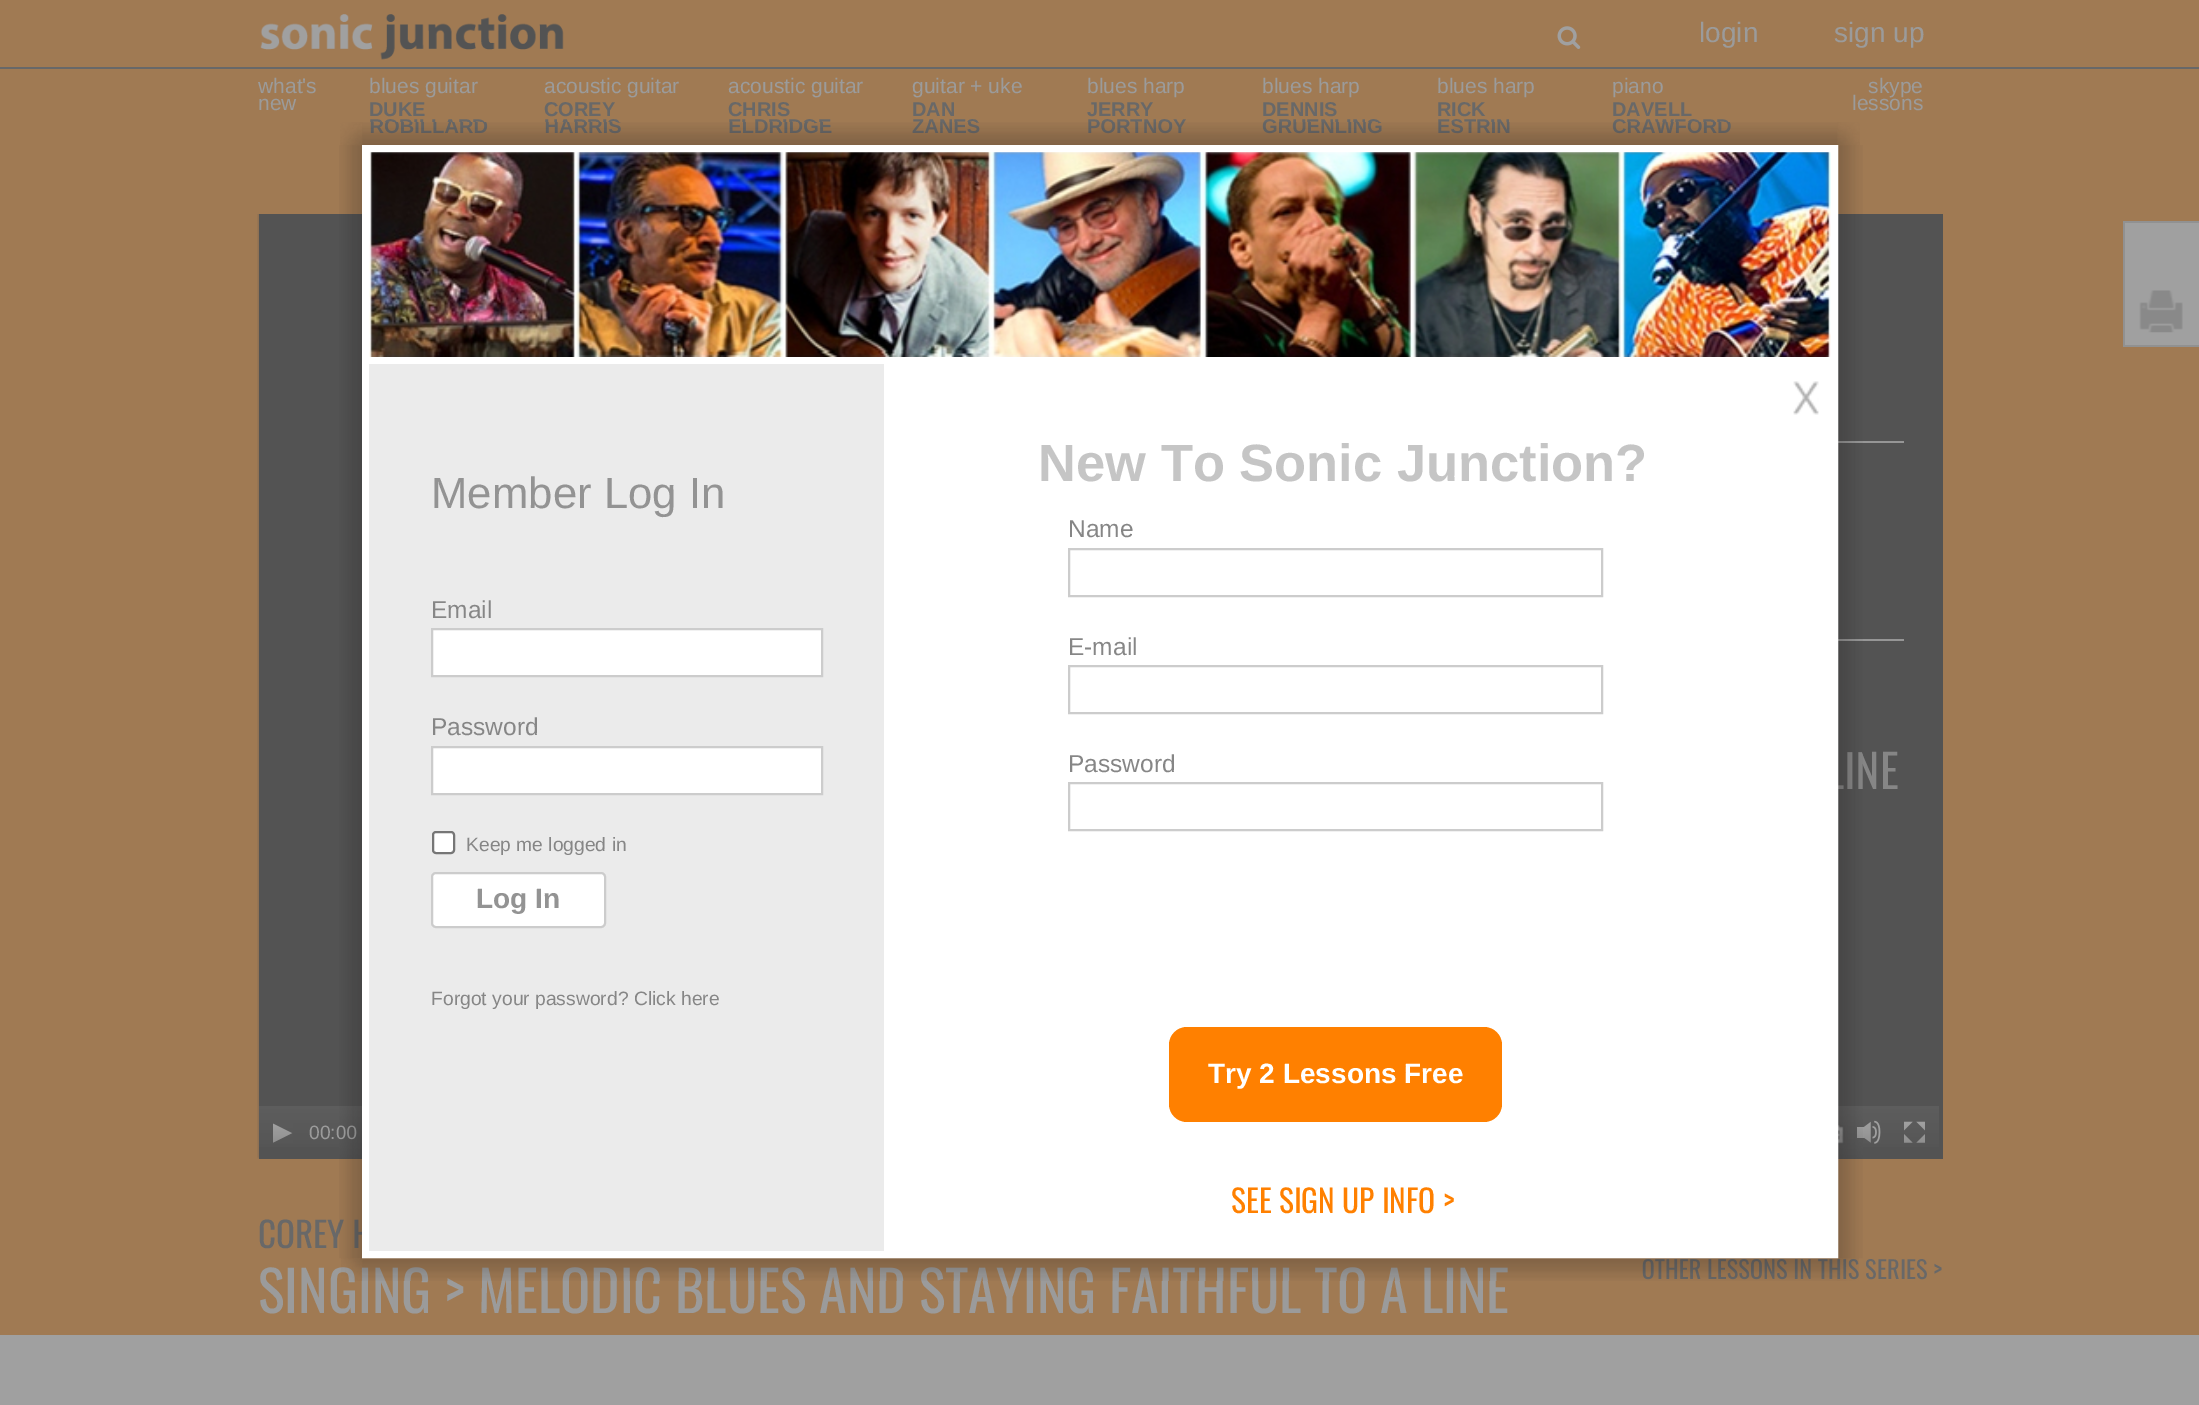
%!PS
<< /PageSize [2199 1405] /PageUsesTransparency true >> setpagedevice
/rgb { 3 { 255 div 3 1 roll } repeat setrgbcolor } def
/font { [ exch dup neg 0 0 3 -1 roll 0 0 ] selectfont } def
/text { moveto show } def
/alpha { dup .setfillconstantalpha .setstrokeconstantalpha } def
/roundrect { 5 dict begin { /r /h /w /y /x } { exch def } forall
  x r add y moveto x w add y 2 copy h add r arct x w add y h add x 1 index r arct
  x y h add x y r arct x y 2 copy exch w add exch r arct closepath end } def
/picture { 5 dict begin { /h /w /y /x /name } { exch def } forall
  gsave x y translate w h scale
  w h 8 [w 0 0 h 0 0] name (r) file false 3 colorimage grestore end } def
0 .pushpdf14devicefilter
0 1405 translate 1 -1 scale
4 setmiterlimit
160 160 160 rgb
0 0 2199 1405 rectfill
104 104 104 rgb
0 67 2199 2 rectfill
160 122 83 rgb
0 0 2199 67 rectfill
(img_01.rgb) 260 14 304 46 picture
(img_02.rgb) 1557 26 24 23 picture
0 69 2199 1266 rectfill
160 160 160 rgb
2125 223 74 122 rectfill
145 145 145 rgb
2123 221 76 2 rectfill
2123 345 76 2 rectfill
2123 221 2 126 rectfill
(img_03.rgb) 2139 290 44 43 picture
83 83 83 rgb
259 214 1684 945 rectfill
(img_14.rgb) 257 214 105 945 picture
0.7 alpha
gsave 259 1106 moveto 1680 0 rlineto 0 41 rlineto -1680 0 rlineto closepath clip newpath
<< /ShadingType 2 /ColorSpace /DeviceRGB /Coords [1099 1106 1099 1159] /Extend [true true] /Function << /FunctionType 2 /Domain [0 1] /C0 [0.384 0.384 0.384] /C1 [0.325 0.325 0.325] /N 1 >> >> shfill grestore
1 alpha
255 255 255 rgb
369 152 1462 1099 rectfill
150 150 150 rgb
1838 441 66 2 rectfill
1838 639 66 2 rectfill
(img_15.rgb) 273 1123 20 20 picture
(img_16.rgb) 1838 1121 7 24 picture
(img_17.rgb) 1857 1120 24 24 picture
(img_18.rgb) 1904 1121 21 22 picture
/LiberationSans-Regular 28 font
155 155 155 rgb
(login) 1699 42 text
(sign up) 1834 42 text
/LiberationSans-Regular 21 font
(what's) 258 93 text
(new) 258 110 text
(blues guitar) 369 93 text
/LiberationSans-Bold 20 font
104 104 104 rgb
(DUKE) 369 116 text
(ROBILLARD) 369 133 text
/LiberationSans-Regular 21 font
155 155 155 rgb
(acoustic guitar) 544 93 text
/LiberationSans-Bold 20 font
104 104 104 rgb
(COREY) 544 116 text
(HARRIS) 544 133 text
/LiberationSans-Regular 21 font
155 155 155 rgb
(acoustic guitar) 728 93 text
/LiberationSans-Bold 20 font
104 104 104 rgb
(CHRIS) 728 116 text
(ELDRIDGE) 728 133 text
/LiberationSans-Regular 21 font
155 155 155 rgb
(guitar + uke) 912 93 text
/LiberationSans-Bold 20 font
104 104 104 rgb
(DAN) 912 116 text
(ZANES) 912 133 text
/LiberationSans-Regular 21 font
155 155 155 rgb
(blues harp) 1087 93 text
/LiberationSans-Bold 20 font
104 104 104 rgb
(JERRY) 1087 116 text
(PORTNOY) 1087 133 text
/LiberationSans-Regular 21 font
155 155 155 rgb
(blues harp) 1262 93 text
/LiberationSans-Bold 20 font
104 104 104 rgb
(DENNIS) 1262 116 text
(GRUENLING) 1262 133 text
/LiberationSans-Regular 21 font
155 155 155 rgb
(blues harp) 1437 93 text
/LiberationSans-Bold 20 font
104 104 104 rgb
(RICK) 1437 116 text
(ESTRIN) 1437 133 text
/LiberationSans-Regular 21 font
155 155 155 rgb
(piano) 1612 93 text
/LiberationSans-Bold 20 font
104 104 104 rgb
(DAVELL) 1612 116 text
(CRAWFORD) 1612 133 text
/LiberationSans-Regular 21 font
155 155 155 rgb
(skype) 1868 93 text
(lessons) 1852 110 text
(img_05.rgb) 362 122 1476 23 picture
(img_06.rgb) 1837 122 23 24 picture
/Oswald-Regular 46 font
134 134 134 rgb
(INE) 1844 789 text
(img_10.rgb) 1837 145 26 1114 picture
/LiberationSans-Regular 19.25 font
155 155 155 rgb
(00:00) 309 1139 text
/Oswald-Regular 35 font
104 104 104 rgb
(COREY) 258 1248 text
/Oswald-Regular 56 font
155 155 155 rgb
(SINGING > MELODIC BLUES AND STAYING FAITHFUL TO A LINE) 258 1313 text
/Oswald-Regular 24.5 font
104 104 104 rgb
(OTHER LESSONS IN THIS SERIES >) 1642 1279 text
(img_13.rgb) 1837 1258 22 23 picture
(img_12.rgb) 362 1258 1476 23 picture
(img_11.rgb) 341 1258 22 23 picture
(img_07.rgb) 339 145 23 1114 picture
(img_04.rgb) 340 122 23 24 picture
255 255 255 rgb
7 setlinewidth
365.5 148.5 1469 1106 rectstroke
(img_09.rgb) 1793 381 26 34 picture
255 128 0 rgb
1169 1027 333 95 18 roundrect fill
/LiberationSans-Bold 28 font
255 255 255 rgb
(Try 2 Lessons Free) 1208 1083 text
235 235 235 rgb
369 364 515 887 rectfill
255 255 255 rgb
432 873 173 54 4 roundrect gsave fill grestore
204 204 204 rgb
2 setlinewidth
stroke
147 147 147 rgb
(Log In) 476 908 text
(img_08.rgb) 369 152 1462 205 picture
/Oswald-Regular 31.5 font
255 128 0 rgb
(SEE SIGN UP INFO >) 1231 1213 text
204 204 204 rgb
1069 783 533 47 rectstroke
/LiberationSans-Regular 24.5 font
134 134 134 rgb
(Password) 1068 772 text
204 204 204 rgb
1069 666 533 47 rectstroke
134 134 134 rgb
(E-mail) 1068 655 text
204 204 204 rgb
1069 549 533 47 rectstroke
134 134 134 rgb
(Name) 1068 537 text
/LiberationSans-Bold 52.5 font
197 197 197 rgb
(New To Sonic Junction?) 1038 481 text
/LiberationSans-Regular 19.3 font
134 134 134 rgb
(Forgot your password? Click here) 431 1005 text
/LiberationSans-Regular 19.25 font
(Keep me logged in) 466 851 text
255 255 255 rgb
432 747 moveto 390 0 rlineto 0 47 rlineto -390 0 rlineto closepath gsave fill grestore
204 204 204 rgb
stroke
/LiberationSans-Regular 24.5 font
134 134 134 rgb
(Password) 431 735 text
255 255 255 rgb
432 629 moveto 390 0 rlineto 0 47 rlineto -390 0 rlineto closepath gsave fill grestore
204 204 204 rgb
stroke
134 134 134 rgb
(Email) 431 618 text
/LiberationSans-Regular 43.75 font
147 147 147 rgb
(Member Log In) 431 508 text
255 255 255 rgb
433 832 21 21 3 roundrect gsave fill grestore
118 118 118 rgb
stroke
.poppdf14devicefilter showpage
